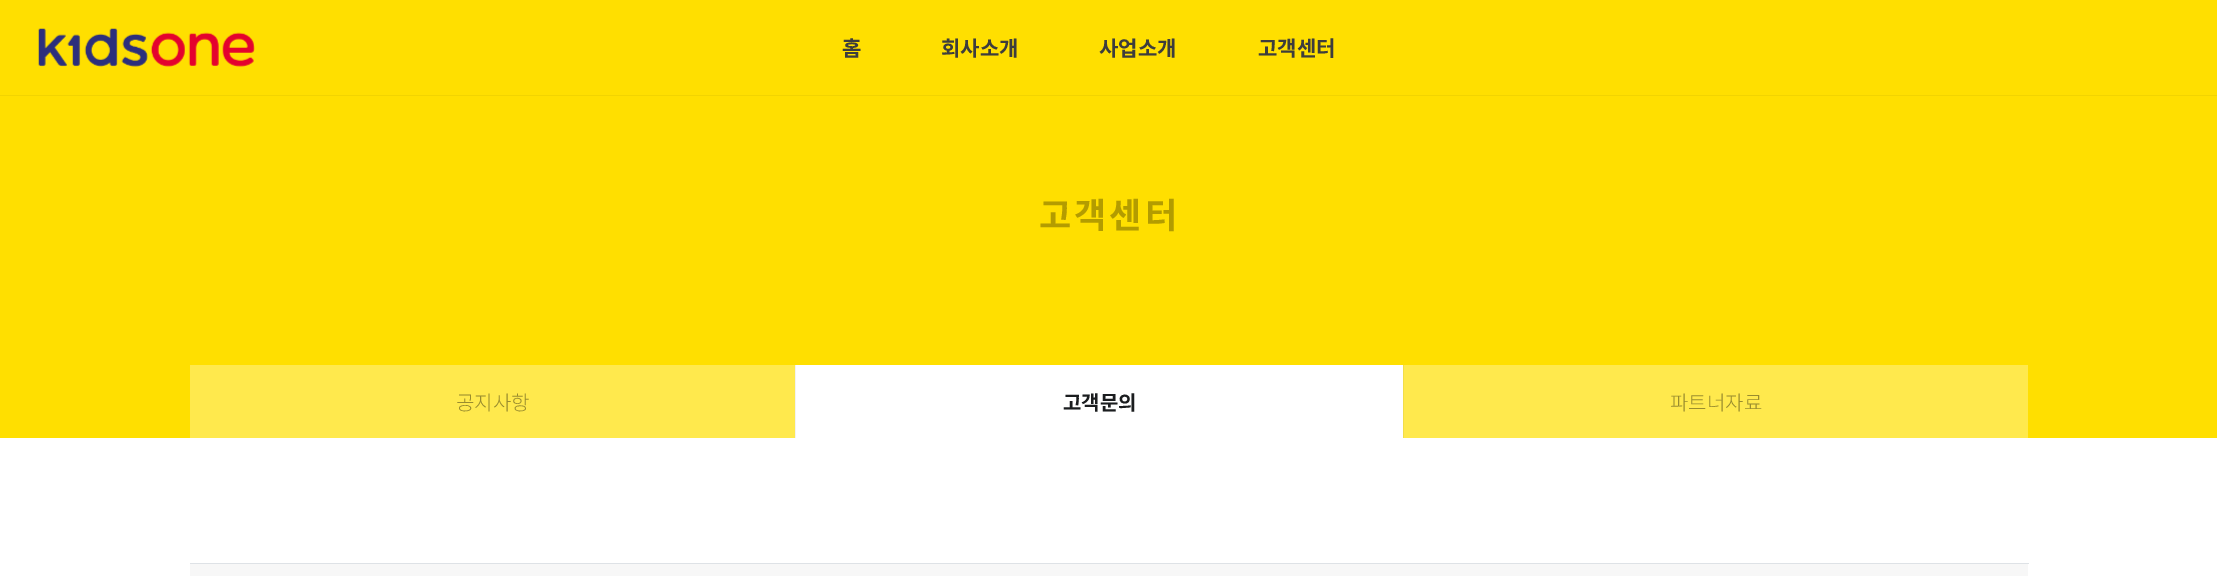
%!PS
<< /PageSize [2217 576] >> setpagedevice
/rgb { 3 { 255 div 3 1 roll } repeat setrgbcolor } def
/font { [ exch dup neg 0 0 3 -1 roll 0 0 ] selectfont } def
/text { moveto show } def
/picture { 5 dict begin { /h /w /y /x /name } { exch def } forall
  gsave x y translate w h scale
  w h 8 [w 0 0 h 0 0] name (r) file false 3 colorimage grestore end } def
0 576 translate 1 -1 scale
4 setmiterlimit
255 255 255 rgb
0 0 2217 576 rectfill
255 223 0 rgb
0 0 2217 438 rectfill
(img_01.rgb) 38 28 217 39 picture
242 212 0 rgb
0 95 2217 1 rectfill
255 233 77 rgb
190 365 605 73 rectfill
255 255 255 rgb
796 365 607 73 rectfill
242 242 242 rgb
795 365 1 73 rectfill
255 233 77 rgb
1404 365 624 73 rectfill
242 221 73 rgb
1403 365 1 73 rectfill
247 247 247 rgb
190 564 1838 12 rectfill
222 226 230 rgb
190 563 1839 1 rectfill
/NotoSansKR-Bold 21 font
61 61 61 rgb
(홈) 842 56 text
(회사소개) 941 56 text
(사업소개) 1099 56 text
(고객센터) 1258 56 text
/NotoSansKR-Bold 35 font
179 156 0 rgb
1039 228 moveto 3 0 (고객센터) ashow
/NotoSansKR-Light 20 font
153 140 46 rgb
(공지사항) 456 410 text
/NotoSansKR-Bold 20 font
27 29 31 rgb
(고객문의) 1063 410 text
/NotoSansKR-Light 20 font
153 140 46 rgb
(파트너자료) 1670 410 text
showpage
